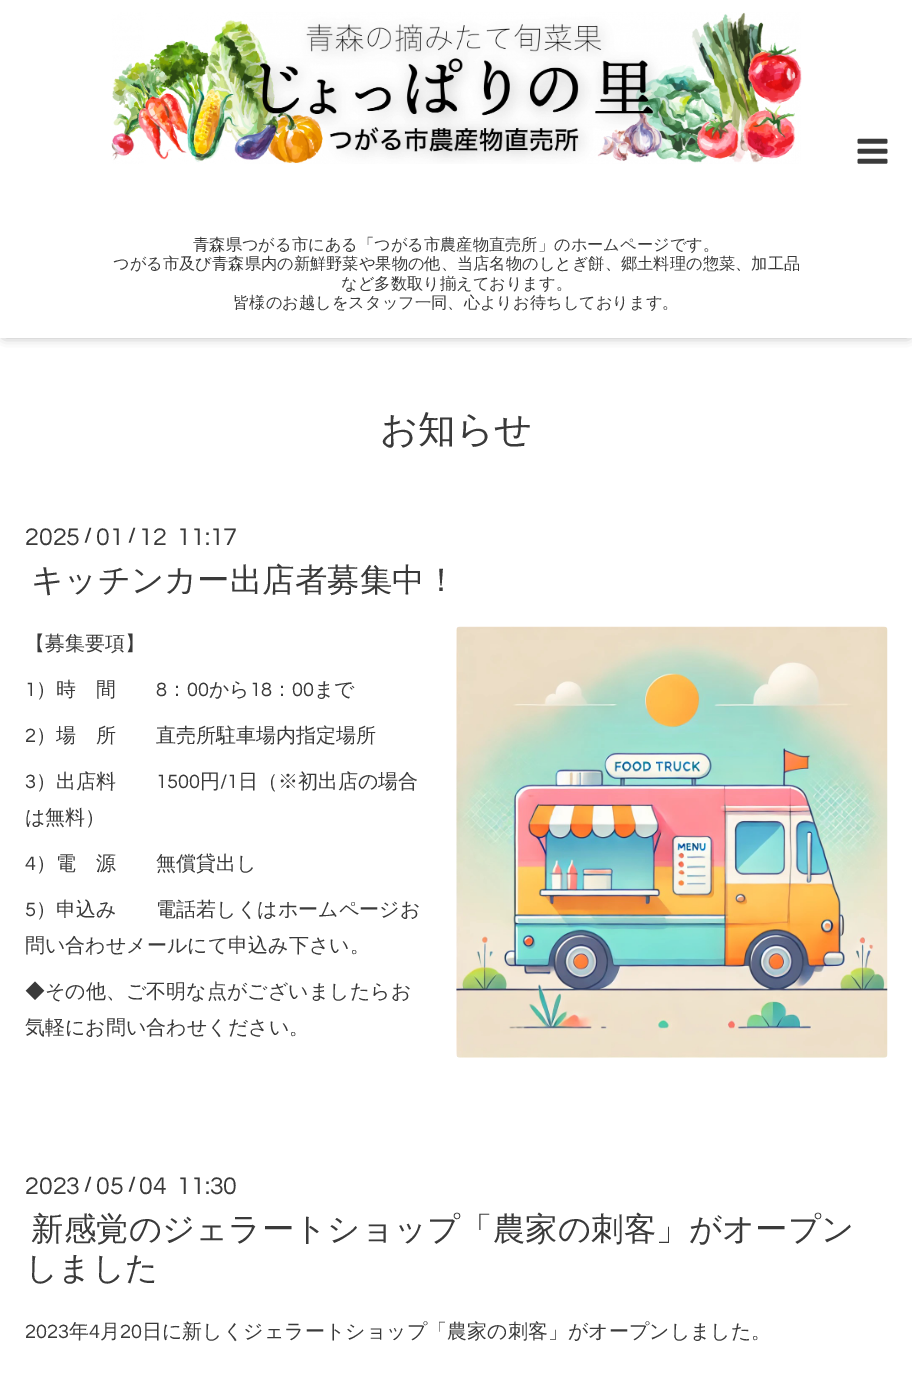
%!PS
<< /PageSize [912 1374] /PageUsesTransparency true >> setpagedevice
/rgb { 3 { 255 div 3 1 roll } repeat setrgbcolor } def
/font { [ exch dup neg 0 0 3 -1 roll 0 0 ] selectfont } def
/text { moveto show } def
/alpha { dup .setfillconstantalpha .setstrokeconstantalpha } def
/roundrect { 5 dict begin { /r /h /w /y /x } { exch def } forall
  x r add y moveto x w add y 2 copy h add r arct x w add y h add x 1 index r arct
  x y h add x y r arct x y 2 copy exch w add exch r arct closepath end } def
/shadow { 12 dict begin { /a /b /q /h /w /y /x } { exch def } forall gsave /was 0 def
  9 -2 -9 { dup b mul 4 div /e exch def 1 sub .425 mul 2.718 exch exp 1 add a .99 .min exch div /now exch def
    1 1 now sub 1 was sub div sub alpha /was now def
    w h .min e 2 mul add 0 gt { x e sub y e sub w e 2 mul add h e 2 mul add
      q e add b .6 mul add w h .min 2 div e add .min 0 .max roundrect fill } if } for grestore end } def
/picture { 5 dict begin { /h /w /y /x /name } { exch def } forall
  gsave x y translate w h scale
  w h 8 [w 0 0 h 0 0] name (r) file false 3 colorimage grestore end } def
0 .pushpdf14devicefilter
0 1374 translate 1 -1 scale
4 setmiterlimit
255 255 255 rgb
0 0 912 1374 rectfill
0 0 0 rgb
5 -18 903 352 0 6 0.6 shadow
255 255 255 rgb
0 0 912 338 rectfill
(img_01.rgb) 857 138 31 26 picture
(img_02.rgb) 111 12 691 152 picture
(img_03.rgb) 456 626 432 432 picture
/WenQuanYiZenHei-Medium 16.25 font
58 58 58 rgb
(青森県つがる市にある「つがる市農産物直売所」のホームページです。) 193 250 text
(つがる市及び青森県内の新鮮野菜や果物の他、当店名物のしとぎ餅、郷土料理の惣菜、加工品) 113 269 text
(など多数取り揃えております。) 341 289 text
(皆様のお越しをスタッフ一同、心よりお待ちしております。) 233 308 text
/WenQuanYiZenHei-Medium 37.5 font
(お知らせ) 380 442 text
/Questrial-Regular 25 font
(2025) 25 545 text
/Questrial-Bold 20 font
(/) 84 542 text
/Questrial-Regular 25 font
(01) 96 545 text
/Questrial-Bold 20 font
(/) 128 542 text
/Questrial-Regular 25 font
(12  11:17) 139 545 text
/WenQuanYiZenHei-Medium 32.5 font
(キッチンカー出店者募集中！) 31 591 text
/WenQuanYiZenHei-Medium 20 font
(【募集要項】) 25 650 text
/Questrial-Regular 20 font
(1) 25 696 text
/WenQuanYiZenHei-Medium 20 font
(）時　間) 36 696 text
/Questrial-Regular 20 font
(8) 156 696 text
/WenQuanYiZenHei-Medium 20 font
(：) 167 696 text
/Questrial-Regular 20 font
(00) 187 696 text
/WenQuanYiZenHei-Medium 20 font
(から) 209 696 text
/Questrial-Regular 20 font
(18) 250 696 text
/WenQuanYiZenHei-Medium 20 font
(：) 272 696 text
/Questrial-Regular 20 font
(00) 292 696 text
/WenQuanYiZenHei-Medium 20 font
(まで) 314 696 text
/Questrial-Regular 20 font
(2) 25 742 text
/WenQuanYiZenHei-Medium 20 font
(）場　所　　直売所駐車場内指定場所) 36 742 text
/Questrial-Regular 20 font
(3) 25 788 text
/WenQuanYiZenHei-Medium 20 font
(）出店料) 36 788 text
/Questrial-Regular 20 font
(1500) 156 788 text
/WenQuanYiZenHei-Medium 20 font
(円) 200 788 text
/Questrial-Regular 20 font
(/1) 220 788 text
/WenQuanYiZenHei-Medium 20 font
(日（※初出店の場合) 238 788 text
(は無料）) 25 824 text
/Questrial-Regular 20 font
(4) 25 870 text
/WenQuanYiZenHei-Medium 20 font
(）電　源　　無償貸出し) 36 870 text
/Questrial-Regular 20 font
(5) 25 916 text
/WenQuanYiZenHei-Medium 20 font
(）申込み　　電話若しくはホームページお) 36 916 text
(問い合わせメールにて申込み下さい。) 25 952 text
(◆その他、ご不明な点がございましたらお) 25 998 text
(気軽にお問い合わせください。) 25 1034 text
/Questrial-Regular 25 font
(2023) 25 1194 text
/Questrial-Bold 20 font
(/) 84 1191 text
/Questrial-Regular 25 font
(05) 96 1194 text
/Questrial-Bold 20 font
(/) 128 1191 text
/Questrial-Regular 25 font
(04  11:30) 139 1194 text
/WenQuanYiZenHei-Medium 32.5 font
(新感覚のジェラートショップ「農家の刺客」がオープン) 31 1240 text
(しました) 25 1279 text
/Questrial-Regular 20 font
(2023) 25 1338 text
/WenQuanYiZenHei-Medium 20 font
(年) 69 1338 text
/Questrial-Regular 20 font
(4) 89 1338 text
/WenQuanYiZenHei-Medium 20 font
(月) 100 1338 text
/Questrial-Regular 20 font
(20) 120 1338 text
/WenQuanYiZenHei-Medium 20 font
(日に新しくジェラートショップ「農家の刺客」がオープンしました。) 142 1338 text
.poppdf14devicefilter showpage
